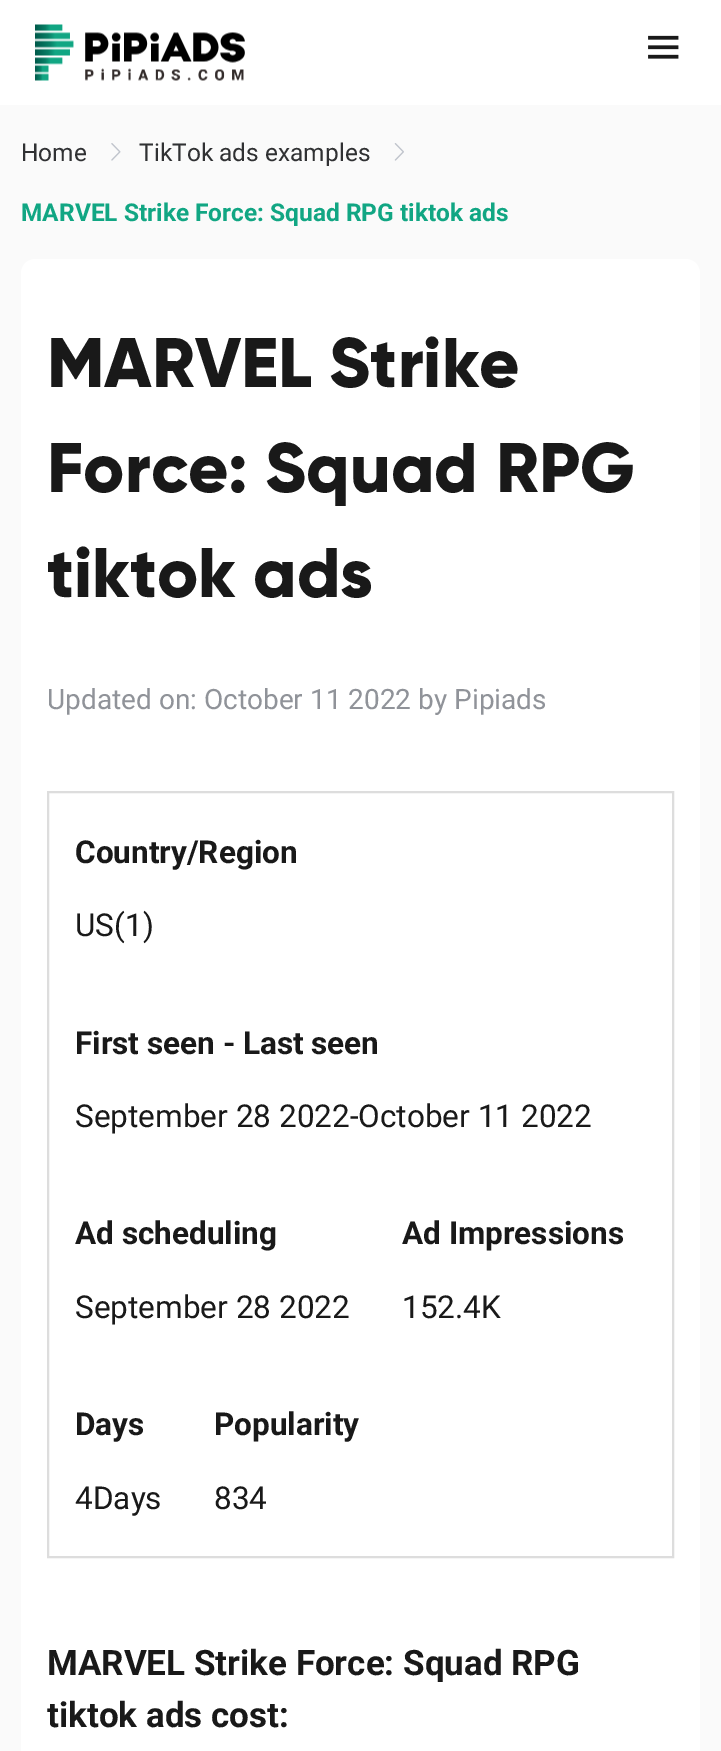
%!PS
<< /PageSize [721 1751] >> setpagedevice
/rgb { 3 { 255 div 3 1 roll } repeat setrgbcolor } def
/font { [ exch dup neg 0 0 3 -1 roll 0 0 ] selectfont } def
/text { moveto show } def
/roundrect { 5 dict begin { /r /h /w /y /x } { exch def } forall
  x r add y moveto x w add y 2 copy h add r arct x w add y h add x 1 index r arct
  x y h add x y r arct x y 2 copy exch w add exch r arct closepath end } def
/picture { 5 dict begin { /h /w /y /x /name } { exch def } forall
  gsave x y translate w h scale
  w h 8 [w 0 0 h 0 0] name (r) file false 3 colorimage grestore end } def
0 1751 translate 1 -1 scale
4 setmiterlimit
255 255 255 rgb
0 0 721 1751 rectfill
(img_01.rgb) 35 24 210 57 picture
(img_02.rgb) 648 35 31 24 picture
250 250 250 rgb
0 105 721 1646 rectfill
(img_03.rgb) 111 143 10 18 picture
(img_04.rgb) 394 143 10 18 picture
255 255 255 rgb
21 259 679 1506 14 roundrect fill
221 221 221 rgb
2 setlinewidth
48 792 625 765 rectstroke
/Roboto-Regular 24.5 font
48 49 51 rgb
(Home) 21 161 text
(TikTok ads examples) 139 161 text
/Roboto-Bold 24.5 font
17 166 131 rgb
(MARVEL Strike Force: Squad RPG tiktok ads) 21 221 text
/Gilroy-ExtraBold 70 font
25 25 25 rgb
(MARVEL Strike) 47 387 text
(Force: Squad RPG) 47 492 text
(tiktok ads) 47 597 text
/Roboto-Regular 28 font
144 147 153 rgb
(Updated on: October 11 2022 by Pipiads) 47 709 text
/Roboto-Bold 31.5 font
25 25 25 rgb
(Country/Region) 75 863 text
/Roboto-Regular 31.5 font
(US\(1\)) 75 936 text
/Roboto-Bold 31.5 font
(First seen - Last seen) 75 1054 text
/Roboto-Regular 31.5 font
(September 28 2022-October 11 2022) 75 1127 text
/Roboto-Bold 31.5 font
(Ad scheduling) 75 1244 text
/Roboto-Regular 31.5 font
(September 28 2022) 75 1318 text
/Roboto-Bold 31.5 font
(Ad Impressions) 402 1244 text
/Roboto-Regular 31.5 font
(152.4K) 402 1318 text
/Roboto-Bold 31.5 font
(Days) 75 1435 text
/Roboto-Regular 31.5 font
(4Days) 75 1509 text
/Roboto-Bold 31.5 font
(Popularity) 214 1435 text
/Roboto-Regular 31.5 font
(834) 214 1509 text
/Roboto-Bold 35 font
(MARVEL Strike Force: Squad RPG) 47 1675 text
(tiktok ads cost:) 47 1727 text
showpage
